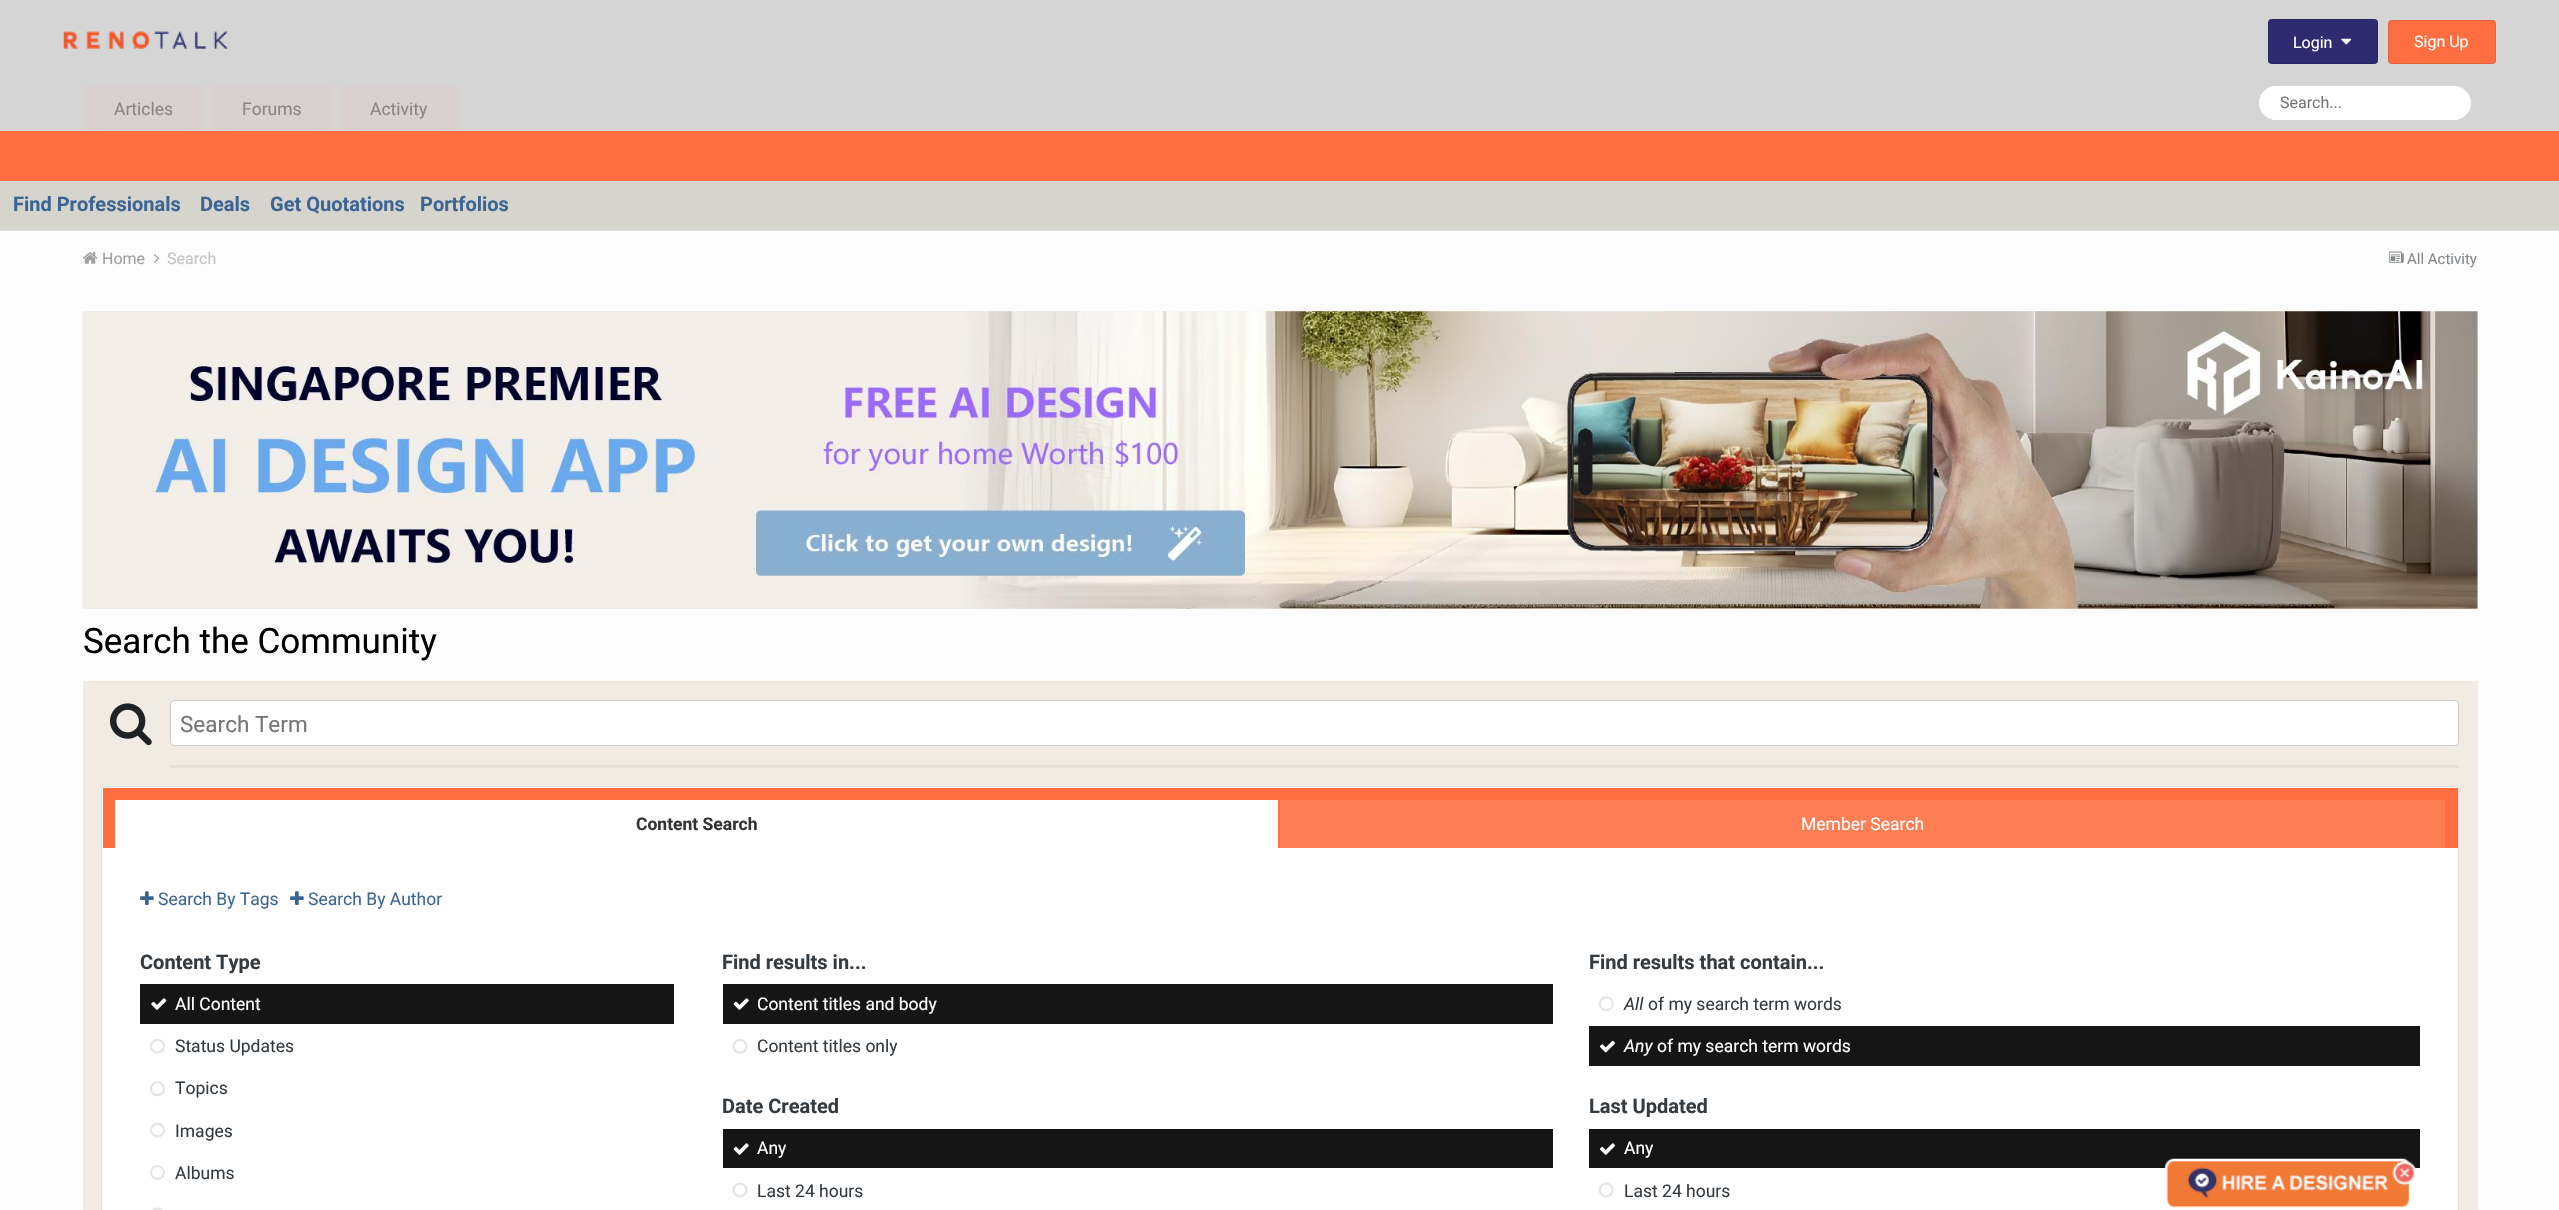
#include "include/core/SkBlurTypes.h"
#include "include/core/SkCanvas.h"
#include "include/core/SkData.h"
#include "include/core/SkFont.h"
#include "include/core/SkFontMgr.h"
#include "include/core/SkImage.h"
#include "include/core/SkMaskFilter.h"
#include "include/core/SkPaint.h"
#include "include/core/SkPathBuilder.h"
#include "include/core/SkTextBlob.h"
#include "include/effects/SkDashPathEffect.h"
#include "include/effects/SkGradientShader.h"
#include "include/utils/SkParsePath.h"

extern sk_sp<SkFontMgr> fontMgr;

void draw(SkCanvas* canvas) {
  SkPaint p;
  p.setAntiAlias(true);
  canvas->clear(SkColorSetRGB(252, 252, 252));
  p.setColor(SkColorSetRGB(227, 227, 227));
  canvas->drawRect(SkRect::MakeLTRB(0, 230, 2559, 231), p);
  p.setColor(SkColorSetRGB(214, 213, 213));
  canvas->drawRect(SkRect::MakeLTRB(0, 0, 2559, 131), p);
  canvas->drawImageRect(SkImages::DeferredFromEncodedData(SkData::MakeFromFileName("images/1.png")), SkRect::MakeLTRB(63, 31, 228, 49), SkSamplingOptions());
  p.setColor(SkColorSetRGB(46, 43, 112));
  canvas->drawRoundRect(SkRect::MakeLTRB(2268, 19, 2378, 64), 4, 4, p);
  p.setStyle(SkPaint::kStroke_Style);
  p.setStrokeWidth(1);
  p.setColor(SkColorSetARGB(26, 0, 0, 0));
  canvas->drawRoundRect(SkRect::MakeLTRB(2268.5f, 19.5f, 2377.5f, 63.5f), 3.5f, 3.5f, p);
  canvas->drawImageRect(SkImages::DeferredFromEncodedData(SkData::MakeFromFileName("images/2.png")), SkRect::MakeLTRB(2341, 38, 2352, 45), SkSamplingOptions());
  p.setStyle(SkPaint::kFill_Style);
  p.setColor(SkColorSetRGB(255, 110, 64));
  canvas->drawRoundRect(SkRect::MakeLTRB(2388, 20, 2496, 64), 4, 4, p);
  p.setStyle(SkPaint::kStroke_Style);
  p.setColor(SkColorSetARGB(26, 0, 0, 0));
  canvas->drawRoundRect(SkRect::MakeLTRB(2388.5f, 20.5f, 2495.5f, 63.5f), 3.5f, 3.5f, p);
  p.setStyle(SkPaint::kFill_Style);
  p.setColor(SkColorSetRGB(255, 110, 64));
  canvas->drawRect(SkRect::MakeLTRB(0, 131, 2559, 181), p);
  p.setColor(SkColorSetRGB(216, 209, 207));
  canvas->drawPath(SkPathBuilder().moveTo(85.5f, 86).lineTo(201.5f, 86).cubicTo(203, 86, 204, 87, 204, 88.5f).lineTo(204, 131).lineTo(83, 131).lineTo(83, 88.5f).cubicTo(83, 87, 84, 86, 85.5f, 86).close().detach(), p);
  canvas->drawPath(SkPathBuilder().moveTo(212.5f, 86).lineTo(330.5f, 86).cubicTo(332, 86, 333, 87, 333, 88.5f).lineTo(333, 131).lineTo(210, 131).lineTo(210, 88.5f).cubicTo(210, 87, 211, 86, 212.5f, 86).close().detach(), p);
  canvas->drawPath(SkPathBuilder().moveTo(341.5f, 86).lineTo(456.5f, 86).cubicTo(458, 86, 459, 87, 459, 88.5f).lineTo(459, 131).lineTo(339, 131).lineTo(339, 88.5f).cubicTo(339, 87, 340, 86, 341.5f, 86).close().detach(), p);
  p.setColor(SK_ColorWHITE);
  canvas->drawRoundRect(SkRect::MakeLTRB(2259, 86, 2471, 120), 17, 17, p);
  p.setStyle(SkPaint::kStroke_Style);
  p.setColor(SkColorSetRGB(118, 118, 118));
  canvas->drawRoundRect(SkRect::MakeLTRB(2271.5f, 91.5f, 2307.5f, 118.5f), 2, 2, p);
  p.setStyle(SkPaint::kFill_Style);
  p.setColor(SK_ColorWHITE);
  canvas->drawRoundRect(SkRect::MakeLTRB(2271, 86, 2434, 120), 4, 4, p);
  p.setColor(SkColorSetRGB(213, 212, 205));
  canvas->drawRect(SkRect::MakeLTRB(0, 181, 2559, 230), p);
  canvas->drawImageRect(SkImages::DeferredFromEncodedData(SkData::MakeFromFileName("images/3.png")), SkRect::MakeLTRB(83, 252, 98, 264), SkSamplingOptions());
  canvas->drawImageRect(SkImages::DeferredFromEncodedData(SkData::MakeFromFileName("images/4.png")), SkRect::MakeLTRB(154, 254, 160, 263), SkSamplingOptions());
  canvas->drawImageRect(SkImages::DeferredFromEncodedData(SkData::MakeFromFileName("images/5.png")), SkRect::MakeLTRB(2389, 251, 2404, 263), SkSamplingOptions());
  p.setColor(SkColorSetRGB(240, 232, 230));
  canvas->drawRect(SkRect::MakeLTRB(83, 311, 2478, 609), p);
  canvas->drawImageRect(SkImages::DeferredFromEncodedData(SkData::MakeFromFileName("images/6.png")), SkRect::MakeLTRB(82, 311, 2478, 609), SkSamplingOptions());
  p.setColor(SkColorSetRGB(242, 235, 228));
  canvas->drawRect(SkRect::MakeLTRB(83, 681, 2478, 1210), p);
  canvas->drawImageRect(SkImages::DeferredFromEncodedData(SkData::MakeFromFileName("images/7.png")), SkRect::MakeLTRB(110, 703, 152, 746), SkSamplingOptions());
  p.setColor(SK_ColorWHITE);
  canvas->drawRoundRect(SkRect::MakeLTRB(170, 700, 2459, 746), 4, 4, p);
  p.setStyle(SkPaint::kStroke_Style);
  p.setColor(SkColorSetARGB(51, 0, 0, 0));
  canvas->drawRoundRect(SkRect::MakeLTRB(170.5f, 700.5f, 2458.5f, 745.5f), 3.5f, 3.5f, p);
  p.setStyle(SkPaint::kFill_Style);
  p.setColor(SkColorSetRGB(230, 223, 217));
  canvas->drawRect(SkRect::MakeLTRB(170, 765, 2459, 768), p);
  p.setColor(SK_ColorWHITE);
  canvas->drawRoundRect(SkRect::MakeLTRB(101.5f, 786.5f, 2458.5f, 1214.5f), 3.5f, 3.5f, p);
  p.setStyle(SkPaint::kStroke_Style);
  p.setColor(SkColorSetRGB(224, 224, 224));
  canvas->drawRoundRect(SkRect::MakeLTRB(101.5f, 786.5f, 2458.5f, 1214.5f), 3.5f, 3.5f, p);
  p.setStyle(SkPaint::kFill_Style);
  p.setColor(SkColorSetRGB(255, 110, 64));
  canvas->drawRect(SkRect::MakeLTRB(103, 788, 2458, 848), p);
  p.setColor(SK_ColorWHITE);
  canvas->drawRect(SkRect::MakeLTRB(115, 800, 1278, 848), p);
  p.setColor(SkColorSetRGB(255, 125, 83));
  canvas->drawRect(SkRect::MakeLTRB(1280, 800, 2445, 848), p);
  canvas->drawImageRect(SkImages::DeferredFromEncodedData(SkData::MakeFromFileName("images/8.png")), SkRect::MakeLTRB(140, 891, 154, 905), SkSamplingOptions());
  canvas->drawImageRect(SkImages::DeferredFromEncodedData(SkData::MakeFromFileName("images/8.png")), SkRect::MakeLTRB(290, 891, 304, 905), SkSamplingOptions());
  p.setColor(SkColorSetRGB(21, 21, 21));
  canvas->drawRect(SkRect::MakeLTRB(140, 984, 674, 1024), p);
  canvas->drawImageRect(SkImages::DeferredFromEncodedData(SkData::MakeFromFileName("images/9.png")), SkRect::MakeLTRB(151, 998, 167, 1010), SkSamplingOptions());
  canvas->drawImageRect(SkImages::DeferredFromEncodedData(SkData::MakeFromFileName("images/10.png")), SkRect::MakeLTRB(150, 1038, 165, 1054), SkSamplingOptions());
  canvas->drawImageRect(SkImages::DeferredFromEncodedData(SkData::MakeFromFileName("images/11.png")), SkRect::MakeLTRB(150, 1081, 165, 1097), SkSamplingOptions());
  canvas->drawImageRect(SkImages::DeferredFromEncodedData(SkData::MakeFromFileName("images/12.png")), SkRect::MakeLTRB(150, 1122, 165, 1138), SkSamplingOptions());
  canvas->drawImageRect(SkImages::DeferredFromEncodedData(SkData::MakeFromFileName("images/13.png")), SkRect::MakeLTRB(150, 1165, 165, 1180), SkSamplingOptions());
  canvas->drawImageRect(SkImages::DeferredFromEncodedData(SkData::MakeFromFileName("images/14.png")), SkRect::MakeLTRB(152, 1207, 163, 1210), SkSamplingOptions());
  canvas->drawRect(SkRect::MakeLTRB(723, 984, 1553, 1024), p);
  canvas->drawImageRect(SkImages::DeferredFromEncodedData(SkData::MakeFromFileName("images/15.png")), SkRect::MakeLTRB(733, 998, 749, 1010), SkSamplingOptions());
  canvas->drawImageRect(SkImages::DeferredFromEncodedData(SkData::MakeFromFileName("images/16.png")), SkRect::MakeLTRB(732, 1038, 748, 1054), SkSamplingOptions());
  canvas->drawImageRect(SkImages::DeferredFromEncodedData(SkData::MakeFromFileName("images/17.png")), SkRect::MakeLTRB(1598, 996, 1614, 1012), SkSamplingOptions());
  canvas->drawRect(SkRect::MakeLTRB(1589, 1026, 2420, 1066), p);
  canvas->drawImageRect(SkImages::DeferredFromEncodedData(SkData::MakeFromFileName("images/18.png")), SkRect::MakeLTRB(1600, 1040, 1615, 1053), SkSamplingOptions());
  canvas->drawRect(SkRect::MakeLTRB(723, 1129, 1553, 1168), p);
  canvas->drawImageRect(SkImages::DeferredFromEncodedData(SkData::MakeFromFileName("images/15.png")), SkRect::MakeLTRB(733, 1143, 749, 1155), SkSamplingOptions());
  canvas->drawImageRect(SkImages::DeferredFromEncodedData(SkData::MakeFromFileName("images/19.png")), SkRect::MakeLTRB(732, 1182, 748, 1198), SkSamplingOptions());
  canvas->drawRect(SkRect::MakeLTRB(1589, 1129, 2420, 1168), p);
  canvas->drawImageRect(SkImages::DeferredFromEncodedData(SkData::MakeFromFileName("images/20.png")), SkRect::MakeLTRB(1600, 1143, 1615, 1155), SkSamplingOptions());
  canvas->drawImageRect(SkImages::DeferredFromEncodedData(SkData::MakeFromFileName("images/21.png")), SkRect::MakeLTRB(1598, 1182, 1614, 1198), SkSamplingOptions());
  canvas->drawImageRect(SkImages::DeferredFromEncodedData(SkData::MakeFromFileName("images/22.png")), SkRect::MakeLTRB(2164, 1158, 2417, 1208), SkSamplingOptions());
  SkFont font1(fontMgr->matchFamilyStyle("Roboto", SkFontStyle::Normal()), 16);
  font1.setSubpixel(true);
  p.setColor(SK_ColorWHITE);
  canvas->drawString("Login", 2293, 48, font1, p);
  canvas->drawString("Sign Up", 2414, 47, font1, p);
  SkFont font2(fontMgr->matchFamilyStyle("Roboto", SkFontStyle::Normal()), 17.5f);
  font2.setSubpixel(true);
  p.setColor(SkColorSetRGB(136, 134, 134));
  canvas->drawString("Articles", 114, 115, font2, p);
  canvas->drawString("Forums", 242, 115, font2, p);
  canvas->drawString("Activity", 370, 115, font2, p);
  p.setColor(SkColorSetRGB(117, 117, 117));
  canvas->drawString("Search...", 2280, 108, font1, p);
  SkFont font3(fontMgr->matchFamilyStyle("Roboto", SkFontStyle::Bold()), 20);
  font3.setSubpixel(true);
  p.setColor(SkColorSetRGB(61, 101, 148));
  canvas->drawString("Find Professionals", 13, 211, font3, p);
  canvas->drawString("Deals", 200, 211, font3, p);
  canvas->drawString("Get Quotations", 270, 211, font3, p);
  canvas->drawString("Portfolios", 420, 211, font3, p);
  p.setColor(SkColorSetRGB(159, 159, 159));
  canvas->drawString("Home", 102, 264, font1, p);
  p.setColor(SkColorSetRGB(196, 196, 196));
  canvas->drawString("Search", 167, 264, font1, p);
  SkFont font4(fontMgr->matchFamilyStyle("Roboto", SkFontStyle::Normal()), 15);
  font4.setSubpixel(true);
  p.setColor(SkColorSetRGB(133, 137, 140));
  canvas->drawString("All Activity", 2407, 264, font4, p);
  SkFont font5(fontMgr->matchFamilyStyle("Roboto", SkFontStyle::Normal()), 35);
  font5.setSubpixel(true);
  p.setColor(SK_ColorBLACK);
  canvas->drawString("Search the Community", 83, 653, font5, p);
  SkFont font6(fontMgr->matchFamilyStyle("Roboto", SkFontStyle::Normal()), 22.5f);
  font6.setSubpixel(true);
  p.setColor(SkColorSetRGB(117, 117, 117));
  canvas->drawString("Search Term", 180, 732, font6, p);
  SkFont font7(fontMgr->matchFamilyStyle("Roboto", SkFontStyle::Bold()), 17.5f);
  font7.setSubpixel(true);
  p.setColor(SkColorSetRGB(51, 51, 51));
  canvas->drawString("Content Search", 636, 830, font7, p);
  p.setColor(SK_ColorWHITE);
  canvas->drawString("Member Search", 1801, 830, font2, p);
  p.setColor(SkColorSetRGB(61, 101, 148));
  canvas->drawString("Search By Tags", 158, 905, font2, p);
  canvas->drawString("Search By Author", 308, 905, font2, p);
  p.setColor(SkColorSetRGB(53, 60, 65));
  canvas->drawString("Content Type", 140, 969, font3, p);
  p.setColor(SK_ColorWHITE);
  canvas->drawString("All Content", 175, 1010, font2, p);
  p.setColor(SkColorSetRGB(53, 60, 65));
  canvas->drawString("Status Updates", 175, 1052, font2, p);
  canvas->drawString("Topics", 175, 1094, font2, p);
  canvas->drawString("Images", 175, 1137, font2, p);
  canvas->drawString("Albums", 175, 1179, font2, p);
  canvas->drawString("Find results in...", 722, 969, font3, p);
  p.setColor(SK_ColorWHITE);
  canvas->drawString("Content titles and body", 757, 1010, font2, p);
  p.setColor(SkColorSetRGB(53, 60, 65));
  canvas->drawString("Content titles only", 757, 1052, font2, p);
  canvas->drawString("Find results that contain...", 1589, 969, font3, p);
  SkFont font8(fontMgr->matchFamilyStyle("Roboto", SkFontStyle::Italic()), 17.5f);
  font8.setSubpixel(true);
  canvas->drawString("All", 1624, 1010, font8, p);
  canvas->drawString("of my search term words", 1648, 1010, font2, p);
  p.setColor(SK_ColorWHITE);
  canvas->drawString("Any", 1624, 1052, font8, p);
  canvas->drawString("of my search term words", 1657, 1052, font2, p);
  p.setColor(SkColorSetRGB(53, 60, 65));
  canvas->drawString("Date Created", 722, 1113, font3, p);
  p.setColor(SK_ColorWHITE);
  canvas->drawString("Any", 757, 1154, font2, p);
  p.setColor(SkColorSetRGB(53, 60, 65));
  canvas->drawString("Last 24 hours", 757, 1197, font2, p);
  canvas->drawString("Last Updated", 1589, 1113, font3, p);
  p.setColor(SK_ColorWHITE);
  canvas->drawString("Any", 1624, 1154, font2, p);
  p.setColor(SkColorSetRGB(53, 60, 65));
  canvas->drawString("Last 24 hours", 1624, 1197, font2, p);
}
